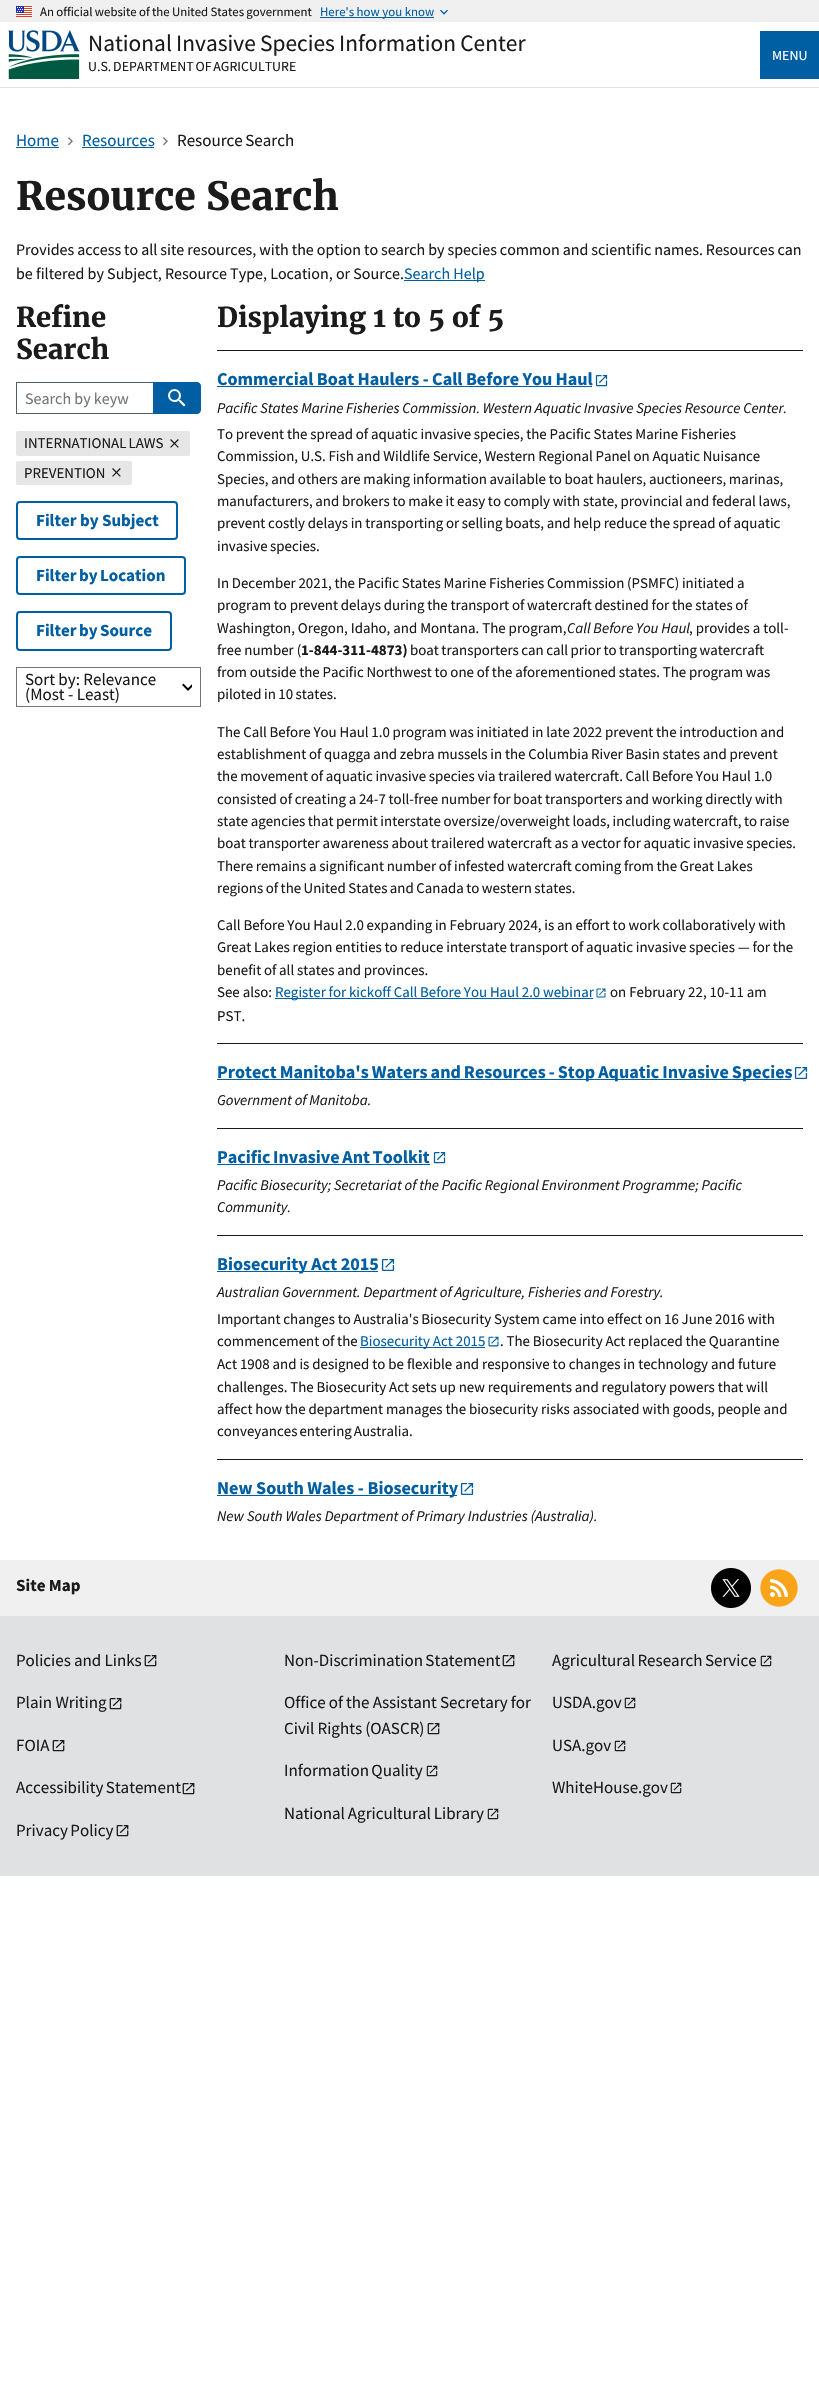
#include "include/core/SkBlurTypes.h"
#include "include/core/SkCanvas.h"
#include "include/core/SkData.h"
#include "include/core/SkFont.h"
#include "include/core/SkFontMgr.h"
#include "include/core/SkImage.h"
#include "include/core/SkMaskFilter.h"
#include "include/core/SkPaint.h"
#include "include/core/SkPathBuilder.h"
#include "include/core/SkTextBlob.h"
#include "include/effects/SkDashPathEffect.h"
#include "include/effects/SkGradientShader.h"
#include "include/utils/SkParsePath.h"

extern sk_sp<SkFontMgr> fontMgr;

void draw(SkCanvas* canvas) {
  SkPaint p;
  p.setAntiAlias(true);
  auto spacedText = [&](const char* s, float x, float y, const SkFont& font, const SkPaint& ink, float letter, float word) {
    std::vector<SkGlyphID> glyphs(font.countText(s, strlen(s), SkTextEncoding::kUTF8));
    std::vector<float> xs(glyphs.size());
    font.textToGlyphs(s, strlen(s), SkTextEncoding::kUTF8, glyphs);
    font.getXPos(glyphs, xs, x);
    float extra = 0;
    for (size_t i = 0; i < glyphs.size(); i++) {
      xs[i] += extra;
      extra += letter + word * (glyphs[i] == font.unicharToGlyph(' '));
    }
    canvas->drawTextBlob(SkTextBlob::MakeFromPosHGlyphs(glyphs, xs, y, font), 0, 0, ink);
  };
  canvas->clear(SK_ColorWHITE);
  p.setColor(SkColorSetRGB(240, 240, 240));
  canvas->drawRect(SkRect::MakeLTRB(0, 0, 819, 22), p);
  canvas->drawImageRect(SkImages::DeferredFromEncodedData(SkData::MakeFromFileName("images/1.png")), SkRect::MakeLTRB(16, 6, 32, 17), SkSamplingOptions());
  p.setColor(SkColorSetRGB(0, 94, 162));
  canvas->drawRect(SkRect::MakeLTRB(320, 17, 434, 18), p);
  canvas->drawImageRect(SkImages::DeferredFromEncodedData(SkData::MakeFromFileName("images/2.png")), SkRect::MakeLTRB(440, 9, 448, 15), SkSamplingOptions());
  p.setColor(SkColorSetRGB(223, 225, 226));
  canvas->drawRect(SkRect::MakeLTRB(0, 87, 819, 88), p);
  canvas->drawImageRect(SkImages::DeferredFromEncodedData(SkData::MakeFromFileName("images/3.png")), SkRect::MakeLTRB(8, 30, 80, 79), SkSamplingOptions());
  p.setColor(SkColorSetRGB(0, 94, 162));
  canvas->drawRect(SkRect::MakeLTRB(760, 31, 819, 79), p);
  canvas->drawRect(SkRect::MakeLTRB(16, 147, 59, 148), p);
  canvas->drawImageRect(SkImages::DeferredFromEncodedData(SkData::MakeFromFileName("images/4.png")), SkRect::MakeLTRB(68, 137, 73, 146), SkSamplingOptions());
  canvas->drawRect(SkRect::MakeLTRB(82, 147, 154, 148), p);
  canvas->drawImageRect(SkImages::DeferredFromEncodedData(SkData::MakeFromFileName("images/4.png")), SkRect::MakeLTRB(163, 137, 168, 146), SkSamplingOptions());
  canvas->drawRect(SkRect::MakeLTRB(404, 280, 485, 281), p);
  p.setColor(SkColorSetRGB(86, 92, 101));
  canvas->drawRect(SkRect::MakeLTRB(16, 382, 153, 383), p);
  canvas->drawRect(SkRect::MakeLTRB(16, 413, 153, 414), p);
  canvas->drawRect(SkRect::MakeLTRB(16, 382, 17, 414), p);
  p.setColor(SkColorSetRGB(0, 94, 162));
  canvas->drawPath(SkPathBuilder().moveTo(153, 382).lineTo(197, 382).cubicTo(199, 382, 201, 384, 201, 386).lineTo(201, 410).cubicTo(201, 412, 199, 414, 197, 414).lineTo(153, 414).close().detach(), p);
  canvas->drawImageRect(SkImages::DeferredFromEncodedData(SkData::MakeFromFileName("images/5.png")), SkRect::MakeLTRB(168, 389, 186, 407), SkSamplingOptions());
  p.setColor(SkColorSetRGB(230, 230, 230));
  canvas->drawRoundRect(SkRect::MakeLTRB(16, 431, 190, 456), 2, 2, p);
  canvas->drawImageRect(SkImages::DeferredFromEncodedData(SkData::MakeFromFileName("images/6.png")), SkRect::MakeLTRB(170, 439, 179, 448), SkSamplingOptions());
  canvas->drawRoundRect(SkRect::MakeLTRB(16, 461, 132, 485), 2, 2, p);
  canvas->drawImageRect(SkImages::DeferredFromEncodedData(SkData::MakeFromFileName("images/6.png")), SkRect::MakeLTRB(112, 468, 121, 477), SkSamplingOptions());
  p.setStyle(SkPaint::kStroke_Style);
  p.setStrokeWidth(2);
  p.setColor(SkColorSetRGB(0, 94, 162));
  canvas->drawRoundRect(SkRect::MakeLTRB(17, 502, 177, 539), 3, 3, p);
  canvas->drawRoundRect(SkRect::MakeLTRB(17, 557, 185, 594), 3, 3, p);
  canvas->drawRoundRect(SkRect::MakeLTRB(17, 612, 171, 650), 3, 3, p);
  p.setStrokeWidth(1);
  p.setColor(SkColorSetRGB(113, 118, 122));
  canvas->drawRect(SkRect::MakeLTRB(16.5f, 667.5f, 200.5f, 706.5f), p);
  canvas->drawImageRect(SkImages::DeferredFromEncodedData(SkData::MakeFromFileName("images/7.png")), SkRect::MakeLTRB(182, 683, 192, 691), SkSamplingOptions());
  p.setStyle(SkPaint::kFill_Style);
  p.setColor(SkColorSetRGB(27, 27, 27));
  canvas->drawRect(SkRect::MakeLTRB(217, 350, 803, 351), p);
  p.setColor(SkColorSetRGB(0, 94, 162));
  canvas->drawRect(SkRect::MakeLTRB(217, 386, 592, 387), p);
  canvas->drawImageRect(SkImages::DeferredFromEncodedData(SkData::MakeFromFileName("images/8.png")), SkRect::MakeLTRB(595, 375, 608, 387), SkSamplingOptions());
  canvas->drawRect(SkRect::MakeLTRB(275, 998, 593, 999), p);
  canvas->drawImageRect(SkImages::DeferredFromEncodedData(SkData::MakeFromFileName("images/9.png")), SkRect::MakeLTRB(596, 988, 606, 998), SkSamplingOptions());
  p.setColor(SkColorSetRGB(27, 27, 27));
  canvas->drawRect(SkRect::MakeLTRB(217, 1043, 803, 1044), p);
  p.setColor(SkColorSetRGB(0, 94, 162));
  canvas->drawRect(SkRect::MakeLTRB(217, 1079, 791, 1080), p);
  canvas->drawImageRect(SkImages::DeferredFromEncodedData(SkData::MakeFromFileName("images/10.png")), SkRect::MakeLTRB(794, 1067, 808, 1079), SkSamplingOptions());
  p.setColor(SkColorSetRGB(27, 27, 27));
  canvas->drawRect(SkRect::MakeLTRB(217, 1128, 803, 1129), p);
  p.setColor(SkColorSetRGB(0, 94, 162));
  canvas->drawRect(SkRect::MakeLTRB(217, 1164, 430, 1165), p);
  canvas->drawImageRect(SkImages::DeferredFromEncodedData(SkData::MakeFromFileName("images/8.png")), SkRect::MakeLTRB(433, 1152, 446, 1164), SkSamplingOptions());
  p.setColor(SkColorSetRGB(27, 27, 27));
  canvas->drawRect(SkRect::MakeLTRB(217, 1235, 803, 1236), p);
  p.setColor(SkColorSetRGB(0, 94, 162));
  canvas->drawRect(SkRect::MakeLTRB(217, 1271, 378, 1272), p);
  canvas->drawImageRect(SkImages::DeferredFromEncodedData(SkData::MakeFromFileName("images/10.png")), SkRect::MakeLTRB(381, 1259, 395, 1271), SkSamplingOptions());
  canvas->drawRect(SkRect::MakeLTRB(360, 1347, 485, 1348), p);
  canvas->drawImageRect(SkImages::DeferredFromEncodedData(SkData::MakeFromFileName("images/11.png")), SkRect::MakeLTRB(488, 1336, 499, 1347), SkSamplingOptions());
  p.setColor(SkColorSetRGB(27, 27, 27));
  canvas->drawRect(SkRect::MakeLTRB(217, 1459, 803, 1460), p);
  p.setColor(SkColorSetRGB(0, 94, 162));
  canvas->drawRect(SkRect::MakeLTRB(217, 1495, 457, 1496), p);
  canvas->drawImageRect(SkImages::DeferredFromEncodedData(SkData::MakeFromFileName("images/10.png")), SkRect::MakeLTRB(460, 1483, 474, 1495), SkSamplingOptions());
  p.setColor(SkColorSetRGB(240, 240, 240));
  canvas->drawRect(SkRect::MakeLTRB(0, 1560, 819, 1616), p);
  canvas->drawImageRect(SkImages::DeferredFromEncodedData(SkData::MakeFromFileName("images/12.png")), SkRect::MakeLTRB(711, 1568, 751, 1608), SkSamplingOptions());
  canvas->drawImageRect(SkImages::DeferredFromEncodedData(SkData::MakeFromFileName("images/13.png")), SkRect::MakeLTRB(760, 1569, 798, 1607), SkSamplingOptions());
  p.setColor(SkColorSetRGB(223, 225, 226));
  canvas->drawRect(SkRect::MakeLTRB(0, 1616, 819, 1876), p);
  canvas->drawImageRect(SkImages::DeferredFromEncodedData(SkData::MakeFromFileName("images/14.png")), SkRect::MakeLTRB(144, 1655, 157, 1667), SkSamplingOptions());
  canvas->drawImageRect(SkImages::DeferredFromEncodedData(SkData::MakeFromFileName("images/15.png")), SkRect::MakeLTRB(502, 1655, 515, 1667), SkSamplingOptions());
  canvas->drawImageRect(SkImages::DeferredFromEncodedData(SkData::MakeFromFileName("images/16.png")), SkRect::MakeLTRB(760, 1655, 772, 1667), SkSamplingOptions());
  canvas->drawImageRect(SkImages::DeferredFromEncodedData(SkData::MakeFromFileName("images/14.png")), SkRect::MakeLTRB(109, 1698, 122, 1710), SkSamplingOptions());
  canvas->drawImageRect(SkImages::DeferredFromEncodedData(SkData::MakeFromFileName("images/14.png")), SkRect::MakeLTRB(427, 1723, 440, 1735), SkSamplingOptions());
  canvas->drawImageRect(SkImages::DeferredFromEncodedData(SkData::MakeFromFileName("images/17.png")), SkRect::MakeLTRB(624, 1697, 636, 1709), SkSamplingOptions());
  canvas->drawImageRect(SkImages::DeferredFromEncodedData(SkData::MakeFromFileName("images/18.png")), SkRect::MakeLTRB(52, 1740, 65, 1752), SkSamplingOptions());
  canvas->drawImageRect(SkImages::DeferredFromEncodedData(SkData::MakeFromFileName("images/17.png")), SkRect::MakeLTRB(614, 1740, 626, 1752), SkSamplingOptions());
  canvas->drawImageRect(SkImages::DeferredFromEncodedData(SkData::MakeFromFileName("images/17.png")), SkRect::MakeLTRB(426, 1765, 438, 1777), SkSamplingOptions());
  canvas->drawImageRect(SkImages::DeferredFromEncodedData(SkData::MakeFromFileName("images/14.png")), SkRect::MakeLTRB(182, 1783, 195, 1795), SkSamplingOptions());
  canvas->drawImageRect(SkImages::DeferredFromEncodedData(SkData::MakeFromFileName("images/17.png")), SkRect::MakeLTRB(670, 1782, 682, 1794), SkSamplingOptions());
  canvas->drawImageRect(SkImages::DeferredFromEncodedData(SkData::MakeFromFileName("images/17.png")), SkRect::MakeLTRB(487, 1808, 499, 1820), SkSamplingOptions());
  canvas->drawImageRect(SkImages::DeferredFromEncodedData(SkData::MakeFromFileName("images/14.png")), SkRect::MakeLTRB(116, 1825, 129, 1837), SkSamplingOptions());
  SkFont font1(fontMgr->matchFamilyStyle("Source Sans Pro", SkFontStyle::Normal()), 12.8f);
  font1.setSubpixel(true);
  p.setColor(SkColorSetRGB(27, 27, 27));
  spacedText("An official website of the United States government", 40, 16, font1, p, 0, -0.25f);
  p.setColor(SkColorSetRGB(0, 94, 162));
  canvas->drawString("Here's how you know", 320, 16, font1, p);
  SkFont font2(fontMgr->matchFamilyStyle("Source Sans Pro", SkFontStyle::Normal()), 23.4f);
  font2.setSubpixel(true);
  p.setColor(SkColorSetRGB(27, 27, 27));
  spacedText("National Invasive Species Information Center", 88, 51, font2, p, 0, -0.5f);
  SkFont font3(fontMgr->matchFamilyStyle("Source Sans Pro", SkFontStyle::Normal()), 13.9f);
  font3.setSubpixel(true);
  spacedText("U.S. DEPARTMENT OF AGRICULTURE", 88, 71, font3, p, 0, -1);
  p.setColor(SK_ColorWHITE);
  canvas->drawString("MENU", 772, 60, font3, p);
  SkFont font4(fontMgr->matchFamilyStyle("Source Sans Pro", SkFontStyle::Normal()), 17);
  font4.setSubpixel(true);
  p.setColor(SkColorSetRGB(0, 94, 162));
  canvas->drawString("Home", 16, 146, font4, p);
  canvas->drawString("Resources", 82, 146, font4, p);
  p.setColor(SkColorSetRGB(27, 27, 27));
  spacedText("Resource Search", 177, 146, font4, p, 0, -1);
  SkFont font5(fontMgr->matchFamilyStyle("Merriweather", SkFontStyle::Bold()), 39);
  font5.setSubpixel(true);
  canvas->drawString("Resource Search", 16, 210, font5, p);
  SkFont font6(fontMgr->matchFamilyStyle("Source Sans Pro", SkFontStyle::Normal()), 16);
  font6.setSubpixel(true);
  spacedText("Provides access to all site resources, with the option to search by species common and scientific names. Resources can", 16, 255, font6, p, 0, -0.25f);
  canvas->drawString("be filtered by Subject, Resource Type, Location, or Source.", 16, 279, font6, p);
  p.setColor(SkColorSetRGB(0, 94, 162));
  canvas->drawString("Search Help", 404, 279, font6, p);
  SkFont font7(fontMgr->matchFamilyStyle("Merriweather", SkFontStyle::Bold()), 27.4f);
  font7.setSubpixel(true);
  p.setColor(SkColorSetRGB(27, 27, 27));
  canvas->drawString("Refine", 16, 327, font7, p);
  canvas->drawString("Search", 16, 359, font7, p);
  p.setColor(SkColorSetRGB(117, 117, 117));
  canvas->drawString("Search by keyw", 25, 404, font6, p);
  SkFont font8(fontMgr->matchFamilyStyle("Source Sans Pro", SkFontStyle::Normal()), 14.9f);
  font8.setSubpixel(true);
  p.setColor(SkColorSetRGB(27, 27, 27));
  spacedText("INTERNATIONAL LAWS", 24, 448, font8, p, 0, -1);
  canvas->drawString("PREVENTION", 24, 478, font8, p);
  SkFont font9(fontMgr->matchFamilyStyle("Source Sans Pro", SkFontStyle::Bold()), 17);
  font9.setSubpixel(true);
  p.setColor(SkColorSetRGB(0, 94, 162));
  canvas->drawString("Filter by Subject", 36, 526, font9, p);
  spacedText("Filter by Location", 36, 581, font9, p, 0, -1);
  spacedText("Filter by Source", 36, 636, font9, p, 0, -1);
  p.setColor(SkColorSetRGB(27, 27, 27));
  canvas->drawString("Sort by: Relevance", 25, 685, font4, p);
  canvas->drawString("(Most - Least)", 25, 700, font4, p);
  canvas->drawString("Displaying 1 to 5 of 5", 217, 327, font7, p);
  SkFont font10(fontMgr->matchFamilyStyle("Source Sans Pro", SkFontStyle::Bold()), 18.1f);
  font10.setSubpixel(true);
  p.setColor(SkColorSetRGB(0, 94, 162));
  spacedText("Commercial Boat Haulers - Call Before You Haul", 217, 385, font10, p, 0, -0.25f);
  SkFont font11(fontMgr->matchFamilyStyle("Source Sans Pro", SkFontStyle::Italic()), 14.9f);
  font11.setSubpixel(true);
  p.setColor(SkColorSetRGB(27, 27, 27));
  spacedText("Pacific States Marine Fisheries Commission. Western Aquatic Invasive Species Resource Center.", 217, 413, font11, p, 0, -0.25f);
  spacedText("To prevent the spread of aquatic invasive species, the Pacific States Marine Fisheries", 217, 439, font8, p, 0, -0.25f);
  spacedText("Commission, U.S. Fish and Wildlife Service, Western Regional Panel on Aquatic Nuisance", 217, 461, font8, p, 0, -0.25f);
  spacedText("Species, and others are making information available to boat haulers, auctioneers, marinas,", 217, 484, font8, p, 0, -0.25f);
  spacedText("manufacturers, and brokers to make it easy to comply with state, provincial and federal laws,", 217, 506, font8, p, 0, -0.25f);
  spacedText("prevent costly delays in transporting or selling boats, and help reduce the spread of aquatic", 217, 528, font8, p, 0, -0.25f);
  spacedText("invasive species.", 217, 551, font8, p, 0, -0.5f);
  spacedText("In December 2021, the Pacific States Marine Fisheries Commission (PSMFC) initiated a", 217, 588, font8, p, 0, -0.25f);
  spacedText("program to prevent delays during the transport of watercraft destined for the states of", 217, 610, font8, p, 0, -0.25f);
  canvas->drawString("Washington, Oregon, Idaho, and Montana. The program,", 217, 633, font8, p);
  spacedText("Call Before You Haul", 567, 633, font11, p, 0, -0.25f);
  canvas->drawString(", provides a toll-", 689, 633, font8, p);
  canvas->drawString("free number (", 217, 655, font8, p);
  SkFont font12(fontMgr->matchFamilyStyle("Source Sans Pro", SkFontStyle::Bold()), 14.9f);
  font12.setSubpixel(true);
  canvas->drawString("1-844-311-4873)", 301, 655, font12, p);
  spacedText("boat transporters can call prior to transporting watercraft", 410, 655, font8, p, 0, -0.5f);
  spacedText("from outside the Pacific Northwest to one of the aforementioned states. The program was", 217, 677, font8, p, 0, -0.25f);
  spacedText("piloted in 10 states.", 217, 699, font8, p, 0, -0.5f);
  spacedText("The Call Before You Haul 1.0 program was initiated in late 2022 prevent the introduction and", 217, 737, font8, p, 0, -0.25f);
  spacedText("establishment of quagga and zebra mussels in the Columbia River Basin states and prevent", 217, 759, font8, p, 0, -0.25f);
  spacedText("the movement of aquatic invasive species via trailered watercraft. Call Before You Haul 1.0", 217, 781, font8, p, 0, -0.25f);
  spacedText("consisted of creating a 24-7 toll-free number for boat transporters and working directly with", 217, 804, font8, p, 0, -0.25f);
  spacedText("state agencies that permit interstate oversize/overweight loads, including watercraft, to raise", 217, 826, font8, p, 0, -0.5f);
  spacedText("boat transporter awareness about trailered watercraft as a vector for aquatic invasive species.", 217, 848, font8, p, 0, -0.3f);
  spacedText("There remains a significant number of infested watercraft coming from the Great Lakes", 217, 871, font8, p, 0, -0.25f);
  spacedText("regions of the United States and Canada to western states.", 217, 893, font8, p, 0, -0.5f);
  spacedText("Call Before You Haul 2.0 expanding in February 2024, is an effort to work collaboratively with", 217, 930, font8, p, 0, -0.2f);
  spacedText("Great Lakes region entities to reduce interstate transport of aquatic invasive species — for the", 217, 952, font8, p, 0, -0.25f);
  spacedText("benefit of all states and provinces.", 217, 975, font8, p, 0, -0.25f);
  canvas->drawString("See also:", 217, 997, font8, p);
  p.setColor(SkColorSetRGB(0, 94, 162));
  spacedText("Register for kickoff Call Before You Haul 2.0 webinar", 275, 997, font8, p, 0, -0.25f);
  p.setColor(SkColorSetRGB(27, 27, 27));
  canvas->drawString("on February 22, 10-11 am", 610, 997, font8, p);
  canvas->drawString("PST.", 217, 1021, font8, p);
  p.setColor(SkColorSetRGB(0, 94, 162));
  spacedText("Protect Manitoba's Waters and Resources - Stop Aquatic Invasive Species", 217, 1078, font10, p, 0, -0.6f);
  p.setColor(SkColorSetRGB(27, 27, 27));
  spacedText("Government of Manitoba.", 217, 1105, font11, p, 0, -0.25f);
  p.setColor(SkColorSetRGB(0, 94, 162));
  spacedText("Pacific Invasive Ant Toolkit", 217, 1163, font10, p, 0, -1);
  p.setColor(SkColorSetRGB(27, 27, 27));
  spacedText("Pacific Biosecurity; Secretariat of the Pacific Regional Environment Programme; Pacific", 217, 1190, font11, p, 0, -0.25f);
  canvas->drawString("Community.", 217, 1212, font11, p);
  p.setColor(SkColorSetRGB(0, 94, 162));
  canvas->drawString("Biosecurity Act 2015", 217, 1270, font10, p);
  p.setColor(SkColorSetRGB(27, 27, 27));
  spacedText("Australian Government. Department of Agriculture, Fisheries and Forestry.", 217, 1297, font11, p, 0, -0.25f);
  spacedText("Important changes to Australia's Biosecurity System came into effect on 16 June 2016 with", 217, 1324, font8, p, 0, -0.25f);
  spacedText("commencement of the", 217, 1346, font8, p, 0, -0.25f);
  p.setColor(SkColorSetRGB(0, 94, 162));
  canvas->drawString("Biosecurity Act 2015", 360, 1346, font8, p);
  p.setColor(SkColorSetRGB(27, 27, 27));
  spacedText(". The Biosecurity Act replaced the Quarantine", 500, 1346, font8, p, 0, -0.2f);
  canvas->drawString("Act 1908 and is designed to be flexible and responsive to changes in technology and future", 217, 1369, font8, p);
  spacedText("challenges. The Biosecurity Act sets up new requirements and regulatory powers that will", 217, 1392, font8, p, 0, -0.2f);
  spacedText("affect how the department manages the biosecurity risks associated with goods, people and", 217, 1414, font8, p, 0, -0.1f);
  spacedText("conveyances entering Australia.", 217, 1436, font8, p, 0, -1);
  p.setColor(SkColorSetRGB(0, 94, 162));
  canvas->drawString("New South Wales - Biosecurity", 217, 1494, font10, p);
  p.setColor(SkColorSetRGB(27, 27, 27));
  canvas->drawString("New South Wales Department of Primary Industries (Australia).", 217, 1521, font11, p);
  canvas->drawString("Site Map", 16, 1591, font9, p);
  spacedText("Policies and Links", 16, 1666, font4, p, 0, -0.25f);
  spacedText("Non-Discrimination Statement", 284, 1666, font4, p, 0, -1);
  spacedText("Agricultural Research Service", 552, 1666, font4, p, 0, -1);
  canvas->drawString("Plain Writing", 16, 1708, font4, p);
  spacedText("Office of the Assistant Secretary for", 284, 1708, font4, p, 0, -0.25f);
  spacedText("Civil Rights (OASCR)", 284, 1734, font4, p, 0, -0.25f);
  canvas->drawString("USDA.gov", 552, 1708, font4, p);
  canvas->drawString("FOIA", 16, 1751, font4, p);
  canvas->drawString("USA.gov", 552, 1751, font4, p);
  spacedText("Information Quality", 284, 1776, font4, p, 0, -1);
  spacedText("Accessibility Statement", 16, 1793, font4, p, 0, -1);
  canvas->drawString("WhiteHouse.gov", 552, 1793, font4, p);
  spacedText("National Agricultural Library", 284, 1819, font4, p, 0, -0.5f);
  spacedText("Privacy Policy", 16, 1836, font4, p, 0, -1);
}
